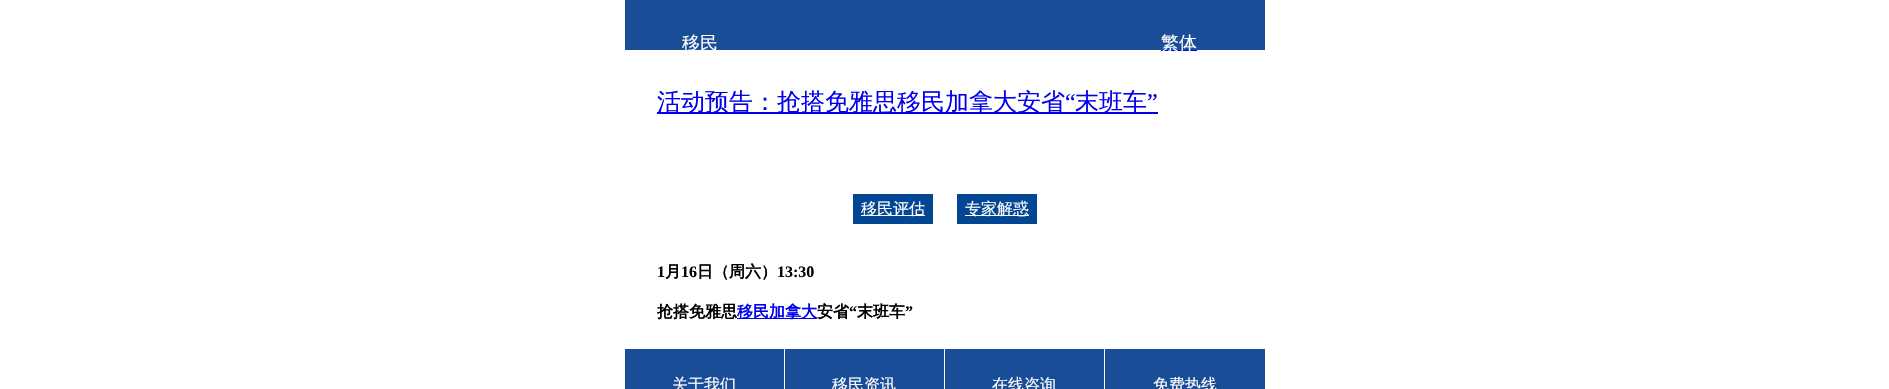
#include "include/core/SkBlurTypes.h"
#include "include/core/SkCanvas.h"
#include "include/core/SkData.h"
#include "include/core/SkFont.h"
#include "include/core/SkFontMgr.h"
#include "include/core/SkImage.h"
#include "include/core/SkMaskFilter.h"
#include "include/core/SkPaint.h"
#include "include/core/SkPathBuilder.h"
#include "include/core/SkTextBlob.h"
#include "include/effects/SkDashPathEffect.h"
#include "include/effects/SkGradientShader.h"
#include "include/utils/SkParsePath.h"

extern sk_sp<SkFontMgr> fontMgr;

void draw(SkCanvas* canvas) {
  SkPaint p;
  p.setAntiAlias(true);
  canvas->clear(SK_ColorWHITE);
  p.setColor(SkColorSetRGB(26, 77, 151));
  canvas->drawRect(SkRect::MakeLTRB(625, 0, 1265, 50), p);
  p.setColor(SkColorSetRGB(0, 0, 238));
  canvas->drawRect(SkRect::MakeLTRB(1161, 50, 1197, 51), p);
  canvas->drawRect(SkRect::MakeLTRB(657, 112, 1158, 114), p);
  p.setColor(SkColorSetRGB(3, 71, 148));
  canvas->drawRect(SkRect::MakeLTRB(853, 194, 933, 224), p);
  p.setColor(SK_ColorWHITE);
  canvas->drawRect(SkRect::MakeLTRB(861, 215, 925, 216), p);
  p.setColor(SkColorSetRGB(3, 71, 148));
  canvas->drawRect(SkRect::MakeLTRB(957, 194, 1037, 224), p);
  p.setColor(SK_ColorWHITE);
  canvas->drawRect(SkRect::MakeLTRB(965, 215, 1029, 216), p);
  p.setColor(SkColorSetRGB(0, 0, 238));
  canvas->drawRect(SkRect::MakeLTRB(737, 318, 817, 319), p);
  p.setColor(SkColorSetRGB(26, 77, 151));
  canvas->drawRect(SkRect::MakeLTRB(625, 349, 784, 389), p);
  canvas->drawRect(SkRect::MakeLTRB(785, 349, 944, 389), p);
  canvas->drawRect(SkRect::MakeLTRB(945, 349, 1104, 389), p);
  canvas->drawRect(SkRect::MakeLTRB(1105, 349, 1265, 389), p);
  SkFont font1(fontMgr->matchFamilyStyle("WenQuanYi Zen Hei", SkFontStyle(500, SkFontStyle::kNormal_Width, SkFontStyle::kUpright_Slant)), 18);
  font1.setSubpixel(true);
  p.setColor(SK_ColorWHITE);
  canvas->drawString("移民", 682, 49, font1, p);
  canvas->drawString("繁体", 1161, 49, font1, p);
  SkFont font2(fontMgr->matchFamilyStyle("WenQuanYi Zen Hei", SkFontStyle(500, SkFontStyle::kNormal_Width, SkFontStyle::kUpright_Slant)), 24);
  font2.setSubpixel(true);
  p.setColor(SkColorSetRGB(0, 0, 238));
  canvas->drawString("活动预告：抢搭免雅思移民加拿大安省", 657, 110, font2, p);
  SkFont font3(fontMgr->matchFamilyStyle("Liberation Serif", SkFontStyle::Normal()), 24);
  font3.setSubpixel(true);
  canvas->drawString("“", 1065, 110, font3, p);
  canvas->drawString("末班车", 1075, 110, font2, p);
  canvas->drawString("”", 1147, 110, font3, p);
  SkFont font4(fontMgr->matchFamilyStyle("WenQuanYi Zen Hei", SkFontStyle(500, SkFontStyle::kNormal_Width, SkFontStyle::kUpright_Slant)), 16);
  font4.setSubpixel(true);
  p.setColor(SK_ColorWHITE);
  canvas->drawString("移民评估", 861, 214, font4, p);
  canvas->drawString("专家解惑", 965, 214, font4, p);
  SkFont font5(fontMgr->matchFamilyStyle("Liberation Serif", SkFontStyle::Bold()), 16);
  font5.setSubpixel(true);
  p.setColor(SK_ColorBLACK);
  canvas->drawString("1", 657, 277, font5, p);
  SkFont font6(fontMgr->matchFamilyStyle("WenQuanYi Zen Hei", SkFontStyle::Bold()), 16);
  font6.setSubpixel(true);
  canvas->drawString("月", 665, 277, font6, p);
  canvas->drawString("16", 681, 277, font5, p);
  canvas->drawString("日（周六）", 697, 277, font6, p);
  canvas->drawString("13:30", 777, 277, font5, p);
  canvas->drawString("抢搭免雅思", 657, 317, font6, p);
  p.setColor(SkColorSetRGB(0, 0, 238));
  canvas->drawString("移民加拿大", 737, 317, font6, p);
  p.setColor(SK_ColorBLACK);
  canvas->drawString("安省", 817, 317, font6, p);
  canvas->drawString("“", 849, 317, font5, p);
  canvas->drawString("末班车", 857, 317, font6, p);
  canvas->drawString("”", 905, 317, font5, p);
  p.setColor(SK_ColorWHITE);
  canvas->drawString("关于我们", 672, 390, font4, p);
  canvas->drawString("移民资讯", 832, 390, font4, p);
  canvas->drawString("在线咨询", 992, 390, font4, p);
  canvas->drawString("免费热线", 1153, 390, font4, p);
}
